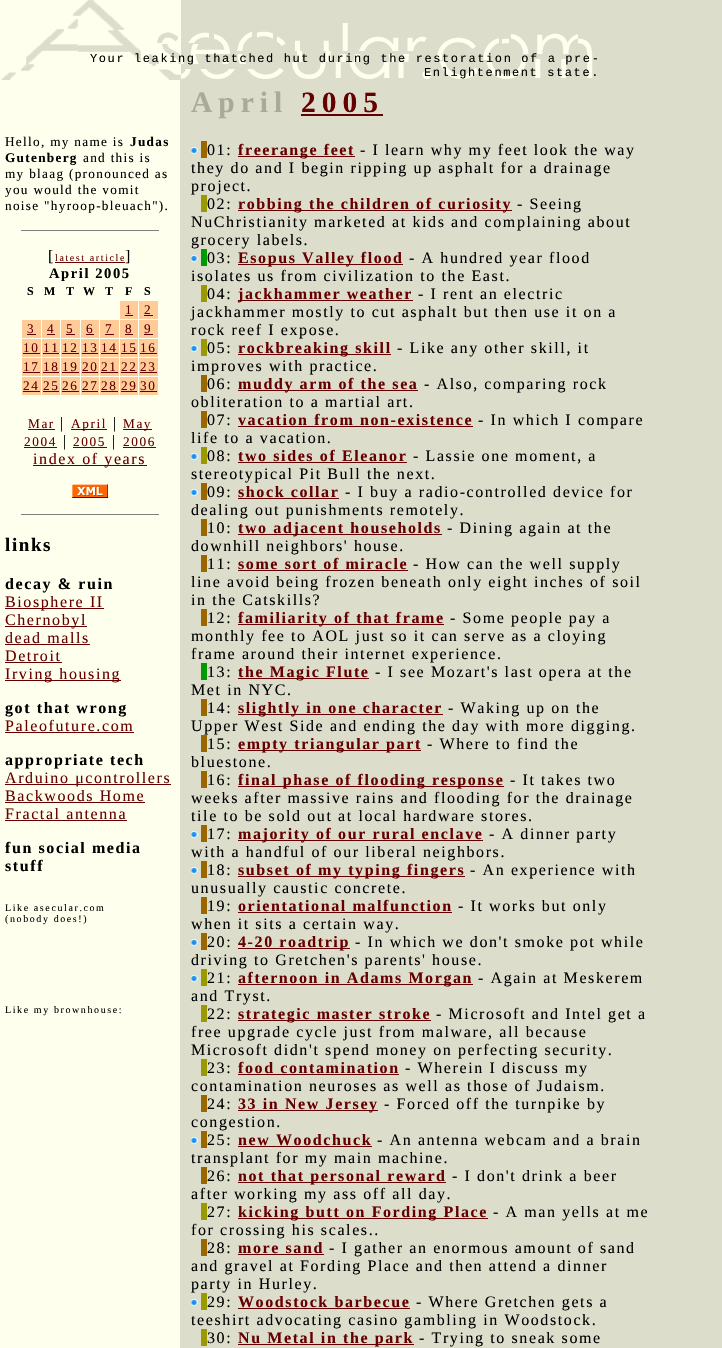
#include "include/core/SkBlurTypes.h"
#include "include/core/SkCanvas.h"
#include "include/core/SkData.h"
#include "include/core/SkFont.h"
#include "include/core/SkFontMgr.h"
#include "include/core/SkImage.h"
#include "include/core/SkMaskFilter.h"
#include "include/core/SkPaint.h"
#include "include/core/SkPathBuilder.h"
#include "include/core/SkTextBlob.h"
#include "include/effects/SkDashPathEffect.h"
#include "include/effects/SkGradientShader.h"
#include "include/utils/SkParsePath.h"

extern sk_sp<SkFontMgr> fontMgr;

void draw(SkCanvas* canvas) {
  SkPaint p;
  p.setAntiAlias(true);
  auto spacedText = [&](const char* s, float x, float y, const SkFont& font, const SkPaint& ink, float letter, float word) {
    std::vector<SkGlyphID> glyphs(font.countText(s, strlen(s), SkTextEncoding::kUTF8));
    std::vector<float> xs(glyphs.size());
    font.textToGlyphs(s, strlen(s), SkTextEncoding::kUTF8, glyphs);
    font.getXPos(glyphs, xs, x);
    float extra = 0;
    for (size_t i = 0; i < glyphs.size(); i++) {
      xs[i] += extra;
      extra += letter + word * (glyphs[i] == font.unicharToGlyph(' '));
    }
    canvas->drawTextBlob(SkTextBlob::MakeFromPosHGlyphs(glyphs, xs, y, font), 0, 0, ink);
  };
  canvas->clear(SkColorSetRGB(221, 221, 204));
  canvas->drawImageRect(SkImages::DeferredFromEncodedData(SkData::MakeFromFileName("images/1.png")), SkRect::MakeLTRB(0, 0, 593, 80), SkSamplingOptions());
  p.setColor(SkColorSetRGB(255, 255, 238));
  canvas->drawRect(SkRect::MakeLTRB(0, 80, 180, 1348), p);
  p.setColor(SkColorSetRGB(128, 128, 128));
  canvas->drawRect(SkRect::MakeLTRB(21, 230, 159, 231), p);
  p.setColor(SkColorSetRGB(102, 0, 0));
  canvas->drawRect(SkRect::MakeLTRB(55, 262, 125, 263), p);
  p.setColor(SkColorSetRGB(255, 204, 153));
  canvas->drawRect(SkRect::MakeLTRB(120, 301, 138, 319), p);
  p.setColor(SkColorSetRGB(102, 0, 0));
  canvas->drawRect(SkRect::MakeLTRB(125, 315, 133, 316), p);
  p.setColor(SkColorSetRGB(255, 204, 153));
  canvas->drawRect(SkRect::MakeLTRB(139, 301, 158, 319), p);
  p.setColor(SkColorSetRGB(102, 0, 0));
  canvas->drawRect(SkRect::MakeLTRB(144, 315, 153, 316), p);
  p.setColor(SkColorSetRGB(255, 204, 153));
  canvas->drawRect(SkRect::MakeLTRB(22, 320, 41, 338), p);
  p.setColor(SkColorSetRGB(102, 0, 0));
  canvas->drawRect(SkRect::MakeLTRB(27, 334, 36, 335), p);
  p.setColor(SkColorSetRGB(255, 204, 153));
  canvas->drawRect(SkRect::MakeLTRB(42, 320, 60, 338), p);
  p.setColor(SkColorSetRGB(102, 0, 0));
  canvas->drawRect(SkRect::MakeLTRB(47, 334, 55, 335), p);
  p.setColor(SkColorSetRGB(255, 204, 153));
  canvas->drawRect(SkRect::MakeLTRB(61, 320, 80, 338), p);
  p.setColor(SkColorSetRGB(102, 0, 0));
  canvas->drawRect(SkRect::MakeLTRB(66, 334, 75, 335), p);
  p.setColor(SkColorSetRGB(255, 204, 153));
  canvas->drawRect(SkRect::MakeLTRB(81, 320, 99, 338), p);
  p.setColor(SkColorSetRGB(102, 0, 0));
  canvas->drawRect(SkRect::MakeLTRB(86, 334, 94, 335), p);
  p.setColor(SkColorSetRGB(255, 204, 153));
  canvas->drawRect(SkRect::MakeLTRB(100, 320, 119, 338), p);
  p.setColor(SkColorSetRGB(102, 0, 0));
  canvas->drawRect(SkRect::MakeLTRB(105, 334, 114, 335), p);
  p.setColor(SkColorSetRGB(255, 204, 153));
  canvas->drawRect(SkRect::MakeLTRB(120, 320, 138, 338), p);
  p.setColor(SkColorSetRGB(102, 0, 0));
  canvas->drawRect(SkRect::MakeLTRB(125, 334, 133, 335), p);
  p.setColor(SkColorSetRGB(255, 204, 153));
  canvas->drawRect(SkRect::MakeLTRB(139, 320, 158, 338), p);
  p.setColor(SkColorSetRGB(102, 0, 0));
  canvas->drawRect(SkRect::MakeLTRB(144, 334, 153, 335), p);
  p.setColor(SkColorSetRGB(255, 204, 153));
  canvas->drawRect(SkRect::MakeLTRB(22, 339, 41, 357), p);
  p.setColor(SkColorSetRGB(102, 0, 0));
  canvas->drawRect(SkRect::MakeLTRB(23, 353, 40, 354), p);
  p.setColor(SkColorSetRGB(255, 204, 153));
  canvas->drawRect(SkRect::MakeLTRB(42, 339, 60, 357), p);
  p.setColor(SkColorSetRGB(102, 0, 0));
  canvas->drawRect(SkRect::MakeLTRB(43, 353, 59, 354), p);
  p.setColor(SkColorSetRGB(255, 204, 153));
  canvas->drawRect(SkRect::MakeLTRB(61, 339, 80, 357), p);
  p.setColor(SkColorSetRGB(102, 0, 0));
  canvas->drawRect(SkRect::MakeLTRB(62, 353, 79, 354), p);
  p.setColor(SkColorSetRGB(255, 204, 153));
  canvas->drawRect(SkRect::MakeLTRB(81, 339, 99, 357), p);
  p.setColor(SkColorSetRGB(102, 0, 0));
  canvas->drawRect(SkRect::MakeLTRB(82, 353, 98, 354), p);
  p.setColor(SkColorSetRGB(255, 204, 153));
  canvas->drawRect(SkRect::MakeLTRB(100, 339, 119, 357), p);
  p.setColor(SkColorSetRGB(102, 0, 0));
  canvas->drawRect(SkRect::MakeLTRB(101, 353, 118, 354), p);
  p.setColor(SkColorSetRGB(255, 204, 153));
  canvas->drawRect(SkRect::MakeLTRB(120, 339, 138, 357), p);
  p.setColor(SkColorSetRGB(102, 0, 0));
  canvas->drawRect(SkRect::MakeLTRB(121, 353, 137, 354), p);
  p.setColor(SkColorSetRGB(255, 204, 153));
  canvas->drawRect(SkRect::MakeLTRB(139, 339, 158, 357), p);
  p.setColor(SkColorSetRGB(102, 0, 0));
  canvas->drawRect(SkRect::MakeLTRB(140, 353, 157, 354), p);
  p.setColor(SkColorSetRGB(255, 204, 153));
  canvas->drawRect(SkRect::MakeLTRB(22, 358, 41, 376), p);
  p.setColor(SkColorSetRGB(102, 0, 0));
  canvas->drawRect(SkRect::MakeLTRB(23, 372, 40, 373), p);
  p.setColor(SkColorSetRGB(255, 204, 153));
  canvas->drawRect(SkRect::MakeLTRB(42, 358, 60, 376), p);
  p.setColor(SkColorSetRGB(102, 0, 0));
  canvas->drawRect(SkRect::MakeLTRB(43, 372, 59, 373), p);
  p.setColor(SkColorSetRGB(255, 204, 153));
  canvas->drawRect(SkRect::MakeLTRB(61, 358, 80, 376), p);
  p.setColor(SkColorSetRGB(102, 0, 0));
  canvas->drawRect(SkRect::MakeLTRB(62, 372, 79, 373), p);
  p.setColor(SkColorSetRGB(255, 204, 153));
  canvas->drawRect(SkRect::MakeLTRB(81, 358, 99, 376), p);
  p.setColor(SkColorSetRGB(102, 0, 0));
  canvas->drawRect(SkRect::MakeLTRB(82, 372, 98, 373), p);
  p.setColor(SkColorSetRGB(255, 204, 153));
  canvas->drawRect(SkRect::MakeLTRB(100, 358, 119, 376), p);
  p.setColor(SkColorSetRGB(102, 0, 0));
  canvas->drawRect(SkRect::MakeLTRB(101, 372, 118, 373), p);
  p.setColor(SkColorSetRGB(255, 204, 153));
  canvas->drawRect(SkRect::MakeLTRB(120, 358, 138, 376), p);
  p.setColor(SkColorSetRGB(102, 0, 0));
  canvas->drawRect(SkRect::MakeLTRB(121, 372, 137, 373), p);
  p.setColor(SkColorSetRGB(255, 204, 153));
  canvas->drawRect(SkRect::MakeLTRB(139, 358, 158, 376), p);
  p.setColor(SkColorSetRGB(102, 0, 0));
  canvas->drawRect(SkRect::MakeLTRB(140, 372, 157, 373), p);
  p.setColor(SkColorSetRGB(255, 204, 153));
  canvas->drawRect(SkRect::MakeLTRB(22, 377, 41, 395), p);
  p.setColor(SkColorSetRGB(102, 0, 0));
  canvas->drawRect(SkRect::MakeLTRB(23, 391, 40, 392), p);
  p.setColor(SkColorSetRGB(255, 204, 153));
  canvas->drawRect(SkRect::MakeLTRB(42, 377, 60, 395), p);
  p.setColor(SkColorSetRGB(102, 0, 0));
  canvas->drawRect(SkRect::MakeLTRB(43, 391, 59, 392), p);
  p.setColor(SkColorSetRGB(255, 204, 153));
  canvas->drawRect(SkRect::MakeLTRB(61, 377, 80, 395), p);
  p.setColor(SkColorSetRGB(102, 0, 0));
  canvas->drawRect(SkRect::MakeLTRB(62, 391, 79, 392), p);
  p.setColor(SkColorSetRGB(255, 204, 153));
  canvas->drawRect(SkRect::MakeLTRB(81, 377, 99, 395), p);
  p.setColor(SkColorSetRGB(102, 0, 0));
  canvas->drawRect(SkRect::MakeLTRB(82, 391, 98, 392), p);
  p.setColor(SkColorSetRGB(255, 204, 153));
  canvas->drawRect(SkRect::MakeLTRB(100, 377, 119, 395), p);
  p.setColor(SkColorSetRGB(102, 0, 0));
  canvas->drawRect(SkRect::MakeLTRB(101, 391, 118, 392), p);
  p.setColor(SkColorSetRGB(255, 204, 153));
  canvas->drawRect(SkRect::MakeLTRB(120, 377, 138, 395), p);
  p.setColor(SkColorSetRGB(102, 0, 0));
  canvas->drawRect(SkRect::MakeLTRB(121, 391, 137, 392), p);
  p.setColor(SkColorSetRGB(255, 204, 153));
  canvas->drawRect(SkRect::MakeLTRB(139, 377, 158, 395), p);
  p.setColor(SkColorSetRGB(102, 0, 0));
  canvas->drawRect(SkRect::MakeLTRB(140, 391, 157, 392), p);
  canvas->drawRect(SkRect::MakeLTRB(28, 429, 55, 430), p);
  canvas->drawRect(SkRect::MakeLTRB(71, 429, 107, 430), p);
  canvas->drawRect(SkRect::MakeLTRB(123, 429, 152, 430), p);
  canvas->drawRect(SkRect::MakeLTRB(24, 447, 57, 448), p);
  canvas->drawRect(SkRect::MakeLTRB(73, 447, 107, 448), p);
  canvas->drawRect(SkRect::MakeLTRB(123, 447, 156, 448), p);
  canvas->drawRect(SkRect::MakeLTRB(33, 465, 147, 466), p);
  canvas->drawImageRect(SkImages::DeferredFromEncodedData(SkData::MakeFromFileName("images/2.png")), SkRect::MakeLTRB(72, 484, 108, 498), SkSamplingOptions());
  p.setColor(SkColorSetRGB(128, 128, 128));
  canvas->drawRect(SkRect::MakeLTRB(21, 514, 159, 515), p);
  p.setColor(SkColorSetRGB(102, 0, 0));
  canvas->drawRect(SkRect::MakeLTRB(5, 608, 104, 609), p);
  canvas->drawRect(SkRect::MakeLTRB(5, 626, 87, 627), p);
  canvas->drawRect(SkRect::MakeLTRB(5, 644, 90, 645), p);
  canvas->drawRect(SkRect::MakeLTRB(5, 662, 62, 663), p);
  canvas->drawRect(SkRect::MakeLTRB(5, 680, 121, 681), p);
  canvas->drawRect(SkRect::MakeLTRB(5, 732, 134, 733), p);
  canvas->drawRect(SkRect::MakeLTRB(5, 784, 171, 785), p);
  canvas->drawRect(SkRect::MakeLTRB(5, 802, 145, 803), p);
  canvas->drawRect(SkRect::MakeLTRB(5, 820, 127, 821), p);
  canvas->drawRect(SkRect::MakeLTRB(301, 114, 383, 116), p);
  canvas->drawImageRect(SkImages::DeferredFromEncodedData(SkData::MakeFromFileName("images/3.png")), SkRect::MakeLTRB(191, 147, 198, 154), SkSamplingOptions());
  p.setColor(SkColorSetRGB(153, 102, 0));
  canvas->drawRect(SkRect::MakeLTRB(201, 141, 207, 158), p);
  p.setColor(SkColorSetRGB(102, 0, 0));
  canvas->drawRect(SkRect::MakeLTRB(238, 156, 355, 157), p);
  p.setColor(SkColorSetRGB(153, 153, 0));
  canvas->drawRect(SkRect::MakeLTRB(201, 195, 207, 212), p);
  p.setColor(SkColorSetRGB(102, 0, 0));
  canvas->drawRect(SkRect::MakeLTRB(238, 210, 512, 211), p);
  canvas->drawImageRect(SkImages::DeferredFromEncodedData(SkData::MakeFromFileName("images/3.png")), SkRect::MakeLTRB(191, 255, 198, 262), SkSamplingOptions());
  p.setColor(SkColorSetRGB(0, 153, 0));
  canvas->drawRect(SkRect::MakeLTRB(201, 249, 207, 266), p);
  p.setColor(SkColorSetRGB(102, 0, 0));
  canvas->drawRect(SkRect::MakeLTRB(238, 264, 403, 265), p);
  p.setColor(SkColorSetRGB(153, 153, 0));
  canvas->drawRect(SkRect::MakeLTRB(201, 285, 207, 302), p);
  p.setColor(SkColorSetRGB(102, 0, 0));
  canvas->drawRect(SkRect::MakeLTRB(238, 300, 413, 301), p);
  canvas->drawImageRect(SkImages::DeferredFromEncodedData(SkData::MakeFromFileName("images/3.png")), SkRect::MakeLTRB(191, 345, 198, 352), SkSamplingOptions());
  p.setColor(SkColorSetRGB(153, 153, 0));
  canvas->drawRect(SkRect::MakeLTRB(201, 339, 207, 356), p);
  p.setColor(SkColorSetRGB(102, 0, 0));
  canvas->drawRect(SkRect::MakeLTRB(238, 354, 391, 355), p);
  p.setColor(SkColorSetRGB(153, 102, 0));
  canvas->drawRect(SkRect::MakeLTRB(201, 375, 207, 392), p);
  p.setColor(SkColorSetRGB(102, 0, 0));
  canvas->drawRect(SkRect::MakeLTRB(238, 390, 418, 391), p);
  p.setColor(SkColorSetRGB(153, 102, 0));
  canvas->drawRect(SkRect::MakeLTRB(201, 411, 207, 428), p);
  p.setColor(SkColorSetRGB(102, 0, 0));
  canvas->drawRect(SkRect::MakeLTRB(238, 426, 473, 427), p);
  canvas->drawImageRect(SkImages::DeferredFromEncodedData(SkData::MakeFromFileName("images/3.png")), SkRect::MakeLTRB(191, 453, 198, 460), SkSamplingOptions());
  p.setColor(SkColorSetRGB(153, 153, 0));
  canvas->drawRect(SkRect::MakeLTRB(201, 447, 207, 464), p);
  p.setColor(SkColorSetRGB(102, 0, 0));
  canvas->drawRect(SkRect::MakeLTRB(238, 462, 407, 463), p);
  canvas->drawImageRect(SkImages::DeferredFromEncodedData(SkData::MakeFromFileName("images/3.png")), SkRect::MakeLTRB(191, 489, 198, 496), SkSamplingOptions());
  p.setColor(SkColorSetRGB(153, 102, 0));
  canvas->drawRect(SkRect::MakeLTRB(201, 483, 207, 500), p);
  p.setColor(SkColorSetRGB(102, 0, 0));
  canvas->drawRect(SkRect::MakeLTRB(238, 498, 339, 499), p);
  p.setColor(SkColorSetRGB(153, 102, 0));
  canvas->drawRect(SkRect::MakeLTRB(201, 519, 207, 536), p);
  p.setColor(SkColorSetRGB(102, 0, 0));
  canvas->drawRect(SkRect::MakeLTRB(238, 534, 442, 535), p);
  p.setColor(SkColorSetRGB(153, 102, 0));
  canvas->drawRect(SkRect::MakeLTRB(201, 555, 207, 572), p);
  p.setColor(SkColorSetRGB(102, 0, 0));
  canvas->drawRect(SkRect::MakeLTRB(238, 570, 408, 571), p);
  p.setColor(SkColorSetRGB(153, 102, 0));
  canvas->drawRect(SkRect::MakeLTRB(201, 609, 207, 626), p);
  p.setColor(SkColorSetRGB(102, 0, 0));
  canvas->drawRect(SkRect::MakeLTRB(238, 624, 444, 625), p);
  p.setColor(SkColorSetRGB(0, 153, 0));
  canvas->drawRect(SkRect::MakeLTRB(201, 663, 207, 680), p);
  p.setColor(SkColorSetRGB(102, 0, 0));
  canvas->drawRect(SkRect::MakeLTRB(238, 678, 369, 679), p);
  p.setColor(SkColorSetRGB(153, 102, 0));
  canvas->drawRect(SkRect::MakeLTRB(201, 699, 207, 716), p);
  p.setColor(SkColorSetRGB(102, 0, 0));
  canvas->drawRect(SkRect::MakeLTRB(238, 714, 443, 715), p);
  p.setColor(SkColorSetRGB(153, 102, 0));
  canvas->drawRect(SkRect::MakeLTRB(201, 735, 207, 752), p);
  p.setColor(SkColorSetRGB(102, 0, 0));
  canvas->drawRect(SkRect::MakeLTRB(238, 750, 421, 751), p);
  p.setColor(SkColorSetRGB(153, 102, 0));
  canvas->drawRect(SkRect::MakeLTRB(201, 771, 207, 788), p);
  p.setColor(SkColorSetRGB(102, 0, 0));
  canvas->drawRect(SkRect::MakeLTRB(238, 786, 504, 787), p);
  canvas->drawImageRect(SkImages::DeferredFromEncodedData(SkData::MakeFromFileName("images/3.png")), SkRect::MakeLTRB(191, 831, 198, 838), SkSamplingOptions());
  p.setColor(SkColorSetRGB(153, 102, 0));
  canvas->drawRect(SkRect::MakeLTRB(201, 825, 207, 842), p);
  p.setColor(SkColorSetRGB(102, 0, 0));
  canvas->drawRect(SkRect::MakeLTRB(238, 840, 483, 841), p);
  canvas->drawImageRect(SkImages::DeferredFromEncodedData(SkData::MakeFromFileName("images/3.png")), SkRect::MakeLTRB(191, 867, 198, 874), SkSamplingOptions());
  p.setColor(SkColorSetRGB(153, 102, 0));
  canvas->drawRect(SkRect::MakeLTRB(201, 861, 207, 878), p);
  p.setColor(SkColorSetRGB(102, 0, 0));
  canvas->drawRect(SkRect::MakeLTRB(238, 876, 465, 877), p);
  p.setColor(SkColorSetRGB(153, 102, 0));
  canvas->drawRect(SkRect::MakeLTRB(201, 897, 207, 914), p);
  p.setColor(SkColorSetRGB(102, 0, 0));
  canvas->drawRect(SkRect::MakeLTRB(238, 912, 452, 913), p);
  canvas->drawImageRect(SkImages::DeferredFromEncodedData(SkData::MakeFromFileName("images/3.png")), SkRect::MakeLTRB(191, 939, 198, 946), SkSamplingOptions());
  p.setColor(SkColorSetRGB(153, 102, 0));
  canvas->drawRect(SkRect::MakeLTRB(201, 933, 207, 950), p);
  p.setColor(SkColorSetRGB(102, 0, 0));
  canvas->drawRect(SkRect::MakeLTRB(238, 948, 350, 949), p);
  canvas->drawImageRect(SkImages::DeferredFromEncodedData(SkData::MakeFromFileName("images/3.png")), SkRect::MakeLTRB(191, 975, 198, 982), SkSamplingOptions());
  p.setColor(SkColorSetRGB(153, 153, 0));
  canvas->drawRect(SkRect::MakeLTRB(201, 969, 207, 986), p);
  p.setColor(SkColorSetRGB(102, 0, 0));
  canvas->drawRect(SkRect::MakeLTRB(238, 984, 473, 985), p);
  p.setColor(SkColorSetRGB(153, 153, 0));
  canvas->drawRect(SkRect::MakeLTRB(201, 1005, 207, 1022), p);
  p.setColor(SkColorSetRGB(102, 0, 0));
  canvas->drawRect(SkRect::MakeLTRB(238, 1020, 431, 1021), p);
  p.setColor(SkColorSetRGB(153, 153, 0));
  canvas->drawRect(SkRect::MakeLTRB(201, 1059, 207, 1076), p);
  p.setColor(SkColorSetRGB(102, 0, 0));
  canvas->drawRect(SkRect::MakeLTRB(238, 1074, 399, 1075), p);
  p.setColor(SkColorSetRGB(153, 102, 0));
  canvas->drawRect(SkRect::MakeLTRB(201, 1095, 207, 1112), p);
  p.setColor(SkColorSetRGB(102, 0, 0));
  canvas->drawRect(SkRect::MakeLTRB(238, 1110, 378, 1111), p);
  canvas->drawImageRect(SkImages::DeferredFromEncodedData(SkData::MakeFromFileName("images/3.png")), SkRect::MakeLTRB(191, 1137, 198, 1144), SkSamplingOptions());
  p.setColor(SkColorSetRGB(153, 102, 0));
  canvas->drawRect(SkRect::MakeLTRB(201, 1131, 207, 1148), p);
  p.setColor(SkColorSetRGB(102, 0, 0));
  canvas->drawRect(SkRect::MakeLTRB(238, 1146, 372, 1147), p);
  p.setColor(SkColorSetRGB(153, 102, 0));
  canvas->drawRect(SkRect::MakeLTRB(201, 1167, 207, 1184), p);
  p.setColor(SkColorSetRGB(102, 0, 0));
  canvas->drawRect(SkRect::MakeLTRB(238, 1182, 446, 1183), p);
  p.setColor(SkColorSetRGB(153, 153, 0));
  canvas->drawRect(SkRect::MakeLTRB(201, 1203, 207, 1220), p);
  p.setColor(SkColorSetRGB(102, 0, 0));
  canvas->drawRect(SkRect::MakeLTRB(238, 1218, 488, 1219), p);
  p.setColor(SkColorSetRGB(153, 102, 0));
  canvas->drawRect(SkRect::MakeLTRB(201, 1239, 207, 1256), p);
  p.setColor(SkColorSetRGB(102, 0, 0));
  canvas->drawRect(SkRect::MakeLTRB(238, 1254, 324, 1255), p);
  canvas->drawImageRect(SkImages::DeferredFromEncodedData(SkData::MakeFromFileName("images/3.png")), SkRect::MakeLTRB(191, 1299, 198, 1306), SkSamplingOptions());
  p.setColor(SkColorSetRGB(153, 153, 0));
  canvas->drawRect(SkRect::MakeLTRB(201, 1293, 207, 1310), p);
  p.setColor(SkColorSetRGB(102, 0, 0));
  canvas->drawRect(SkRect::MakeLTRB(238, 1308, 410, 1309), p);
  p.setColor(SkColorSetRGB(153, 153, 0));
  canvas->drawRect(SkRect::MakeLTRB(201, 1329, 207, 1346), p);
  p.setColor(SkColorSetRGB(102, 0, 0));
  canvas->drawRect(SkRect::MakeLTRB(238, 1344, 414, 1345), p);
  SkFont font1(fontMgr->matchFamilyStyle("Liberation Mono", SkFontStyle::Normal()), 12);
  font1.setSubpixel(true);
  p.setColor(SK_ColorBLACK);
  spacedText("Your leaking thatched hut during the restoration of a pre-", 90, 62, font1, p, 1.6f, 0);
  spacedText("Enlightenment state.", 424, 76, font1, p, 1.6f, 0);
  SkFont font2(fontMgr->matchFamilyStyle("Liberation Serif", SkFontStyle::Normal()), 13.25f);
  font2.setSubpixel(true);
  spacedText("Hello, my name is", 5, 146, font2, p, 1.3f, 0);
  SkFont font3(fontMgr->matchFamilyStyle("Liberation Serif", SkFontStyle::Bold()), 13.25f);
  font3.setSubpixel(true);
  spacedText("Judas", 130, 146, font3, p, 1.3f, 0);
  spacedText("Gutenberg", 5, 162, font3, p, 1.3f, 0);
  spacedText("and this is", 83, 162, font2, p, 1.3f, 0);
  spacedText("my blaag (pronounced as", 5, 178, font2, p, 1.3f, 0);
  spacedText("you would the vomit", 5, 194, font2, p, 1.3f, 0);
  spacedText("noise \"hyroop-bleuach\").", 5, 210, font2, p, 1.3f, 0);
  SkFont font4(fontMgr->matchFamilyStyle("Liberation Serif", SkFontStyle::Normal()), 16);
  font4.setSubpixel(true);
  spacedText("[", 48, 261, font4, p, 1.6f, 0);
  SkFont font5(fontMgr->matchFamilyStyle("Liberation Serif", SkFontStyle::Normal()), 10);
  font5.setSubpixel(true);
  p.setColor(SkColorSetRGB(102, 0, 0));
  spacedText("latest article", 55, 261, font5, p, 1.6f, 0);
  p.setColor(SK_ColorBLACK);
  spacedText("]", 125, 261, font4, p, 1.6f, 0);
  SkFont font6(fontMgr->matchFamilyStyle("Liberation Serif", SkFontStyle::Bold()), 14.5f);
  font6.setSubpixel(true);
  spacedText("April 2005", 49, 278, font6, p, 1.6f, 0);
  SkFont font7(fontMgr->matchFamilyStyle("Liberation Serif", SkFontStyle::Bold()), 12);
  font7.setSubpixel(true);
  spacedText("S", 27, 295, font7, p, 1.6f, 0);
  spacedText("M", 44, 295, font7, p, 1.6f, 0);
  spacedText("T", 66, 295, font7, p, 1.6f, 0);
  spacedText("W", 83, 295, font7, p, 1.6f, 0);
  spacedText("T", 105, 295, font7, p, 1.6f, 0);
  spacedText("F", 125, 295, font7, p, 1.6f, 0);
  spacedText("S", 144, 295, font7, p, 1.6f, 0);
  p.setColor(SkColorSetRGB(102, 0, 0));
  spacedText("1", 125, 314, font2, p, 1.6f, 0);
  spacedText("2", 144, 314, font2, p, 1.6f, 0);
  spacedText("3", 27, 333, font2, p, 1.6f, 0);
  spacedText("4", 47, 333, font2, p, 1.6f, 0);
  spacedText("5", 66, 333, font2, p, 1.6f, 0);
  spacedText("6", 86, 333, font2, p, 1.6f, 0);
  spacedText("7", 105, 333, font2, p, 1.6f, 0);
  spacedText("8", 125, 333, font2, p, 1.6f, 0);
  spacedText("9", 144, 333, font2, p, 1.6f, 0);
  spacedText("10", 23, 352, font2, p, 1.6f, 0);
  spacedText("11", 43, 352, font2, p, 1.6f, 0);
  spacedText("12", 62, 352, font2, p, 1.6f, 0);
  spacedText("13", 82, 352, font2, p, 1.6f, 0);
  spacedText("14", 101, 352, font2, p, 1.6f, 0);
  spacedText("15", 121, 352, font2, p, 1.6f, 0);
  spacedText("16", 140, 352, font2, p, 1.6f, 0);
  spacedText("17", 23, 371, font2, p, 1.6f, 0);
  spacedText("18", 43, 371, font2, p, 1.6f, 0);
  spacedText("19", 62, 371, font2, p, 1.6f, 0);
  spacedText("20", 82, 371, font2, p, 1.6f, 0);
  spacedText("21", 101, 371, font2, p, 1.6f, 0);
  spacedText("22", 121, 371, font2, p, 1.6f, 0);
  spacedText("23", 140, 371, font2, p, 1.6f, 0);
  spacedText("24", 23, 390, font2, p, 1.6f, 0);
  spacedText("25", 43, 390, font2, p, 1.6f, 0);
  spacedText("26", 62, 390, font2, p, 1.6f, 0);
  spacedText("27", 82, 390, font2, p, 1.6f, 0);
  spacedText("28", 101, 390, font2, p, 1.6f, 0);
  spacedText("29", 121, 390, font2, p, 1.6f, 0);
  spacedText("30", 140, 390, font2, p, 1.6f, 0);
  spacedText("Mar", 28, 428, font2, p, 1.6f, 0);
  p.setColor(SK_ColorBLACK);
  spacedText("|", 60, 428, font4, p, 1.6f, 0);
  p.setColor(SkColorSetRGB(102, 0, 0));
  spacedText("April", 71, 428, font2, p, 1.6f, 0);
  p.setColor(SK_ColorBLACK);
  spacedText("|", 113, 428, font4, p, 1.6f, 0);
  p.setColor(SkColorSetRGB(102, 0, 0));
  spacedText("May", 123, 428, font2, p, 1.6f, 0);
  spacedText("2004", 24, 446, font2, p, 1.6f, 0);
  p.setColor(SK_ColorBLACK);
  spacedText("|", 63, 446, font4, p, 1.6f, 0);
  p.setColor(SkColorSetRGB(102, 0, 0));
  spacedText("2005", 73, 446, font2, p, 1.6f, 0);
  p.setColor(SK_ColorBLACK);
  spacedText("|", 112, 446, font4, p, 1.6f, 0);
  p.setColor(SkColorSetRGB(102, 0, 0));
  spacedText("2006", 123, 446, font2, p, 1.6f, 0);
  spacedText("index of years", 33, 464, font4, p, 1.6f, 0);
  SkFont font8(fontMgr->matchFamilyStyle("Liberation Serif", SkFontStyle::Bold()), 19);
  font8.setSubpixel(true);
  p.setColor(SK_ColorBLACK);
  spacedText("links", 5, 551, font8, p, 1.6f, 0);
  SkFont font9(fontMgr->matchFamilyStyle("Liberation Serif", SkFontStyle::Bold()), 16);
  font9.setSubpixel(true);
  spacedText("decay & ruin", 5, 589, font9, p, 1.6f, 0);
  p.setColor(SkColorSetRGB(102, 0, 0));
  spacedText("Biosphere II", 5, 607, font4, p, 1.6f, 0);
  spacedText("Chernobyl", 5, 625, font4, p, 1.6f, 0);
  spacedText("dead malls", 5, 643, font4, p, 1.6f, 0);
  spacedText("Detroit", 5, 661, font4, p, 1.6f, 0);
  spacedText("Irving housing", 5, 679, font4, p, 1.6f, 0);
  p.setColor(SK_ColorBLACK);
  spacedText("got that wrong", 5, 713, font9, p, 1.6f, 0);
  p.setColor(SkColorSetRGB(102, 0, 0));
  spacedText("Paleofuture.com", 5, 731, font4, p, 1.6f, 0);
  p.setColor(SK_ColorBLACK);
  spacedText("appropriate tech", 5, 765, font9, p, 1.6f, 0);
  p.setColor(SkColorSetRGB(102, 0, 0));
  spacedText("Arduino μcontrollers", 5, 783, font4, p, 1.6f, 0);
  spacedText("Backwoods Home", 5, 801, font4, p, 1.6f, 0);
  spacedText("Fractal antenna", 5, 819, font4, p, 1.6f, 0);
  p.setColor(SK_ColorBLACK);
  spacedText("fun social media", 5, 853, font9, p, 1.6f, 0);
  spacedText("stuff", 5, 871, font9, p, 1.6f, 0);
  spacedText("Like asecular.com", 5, 911, font5, p, 1.6f, 0);
  spacedText("(nobody does!)", 5, 922, font5, p, 1.6f, 0);
  spacedText("Like my brownhouse:", 5, 1013, font5, p, 1.6f, 0);
  SkFont font10(fontMgr->matchFamilyStyle("Liberation Serif", SkFontStyle::Bold()), 29.5f);
  font10.setSubpixel(true);
  p.setColor(SkColorSetRGB(170, 170, 153));
  spacedText("April", 191, 112, font10, p, 6, 0);
  p.setColor(SkColorSetRGB(102, 0, 0));
  spacedText("2005", 301, 112, font10, p, 6, 0);
  p.setColor(SK_ColorBLACK);
  spacedText("01:", 207, 155, font4, p, 1.6f, 0);
  p.setColor(SkColorSetRGB(102, 0, 0));
  spacedText("freerange feet", 238, 155, font9, p, 1.6f, 0);
  p.setColor(SK_ColorBLACK);
  spacedText("- I learn why my feet look the way", 360, 155, font4, p, 1.6f, 0);
  spacedText("they do and I begin ripping up asphalt for a drainage", 191, 173, font4, p, 1.6f, 0);
  spacedText("project.", 191, 191, font4, p, 1.6f, 0);
  spacedText("02:", 207, 209, font4, p, 1.6f, 0);
  p.setColor(SkColorSetRGB(102, 0, 0));
  spacedText("robbing the children of curiosity", 238, 209, font9, p, 1.6f, 0);
  p.setColor(SK_ColorBLACK);
  spacedText("- Seeing", 517, 209, font4, p, 1.6f, 0);
  spacedText("NuChristianity marketed at kids and complaining about", 191, 227, font4, p, 1.6f, 0);
  spacedText("grocery labels.", 191, 245, font4, p, 1.6f, 0);
  spacedText("03:", 207, 263, font4, p, 1.6f, 0);
  p.setColor(SkColorSetRGB(102, 0, 0));
  spacedText("Esopus Valley flood", 238, 263, font9, p, 1.6f, 0);
  p.setColor(SK_ColorBLACK);
  spacedText("- A hundred year flood", 409, 263, font4, p, 1.6f, 0);
  spacedText("isolates us from civilization to the East.", 191, 281, font4, p, 1.6f, 0);
  spacedText("04:", 207, 299, font4, p, 1.6f, 0);
  p.setColor(SkColorSetRGB(102, 0, 0));
  spacedText("jackhammer weather", 238, 299, font9, p, 1.6f, 0);
  p.setColor(SK_ColorBLACK);
  spacedText("- I rent an electric", 418, 299, font4, p, 1.6f, 0);
  spacedText("jackhammer mostly to cut asphalt but then use it on a", 191, 317, font4, p, 1.6f, 0);
  spacedText("rock reef I expose.", 191, 335, font4, p, 1.6f, 0);
  spacedText("05:", 207, 353, font4, p, 1.6f, 0);
  p.setColor(SkColorSetRGB(102, 0, 0));
  spacedText("rockbreaking skill", 238, 353, font9, p, 1.6f, 0);
  p.setColor(SK_ColorBLACK);
  spacedText("- Like any other skill, it", 397, 353, font4, p, 1.6f, 0);
  spacedText("improves with practice.", 191, 371, font4, p, 1.6f, 0);
  spacedText("06:", 207, 389, font4, p, 1.6f, 0);
  p.setColor(SkColorSetRGB(102, 0, 0));
  spacedText("muddy arm of the sea", 238, 389, font9, p, 1.6f, 0);
  p.setColor(SK_ColorBLACK);
  spacedText("- Also, comparing rock", 424, 389, font4, p, 1.6f, 0);
  spacedText("obliteration to a martial art.", 191, 407, font4, p, 1.6f, 0);
  spacedText("07:", 207, 425, font4, p, 1.6f, 0);
  p.setColor(SkColorSetRGB(102, 0, 0));
  spacedText("vacation from non-existence", 238, 425, font9, p, 1.6f, 0);
  p.setColor(SK_ColorBLACK);
  spacedText("- In which I compare", 478, 425, font4, p, 1.6f, 0);
  spacedText("life to a vacation.", 191, 443, font4, p, 1.6f, 0);
  spacedText("08:", 207, 461, font4, p, 1.6f, 0);
  p.setColor(SkColorSetRGB(102, 0, 0));
  spacedText("two sides of Eleanor", 238, 461, font9, p, 1.6f, 0);
  p.setColor(SK_ColorBLACK);
  spacedText("- Lassie one moment, a", 413, 461, font4, p, 1.6f, 0);
  spacedText("stereotypical Pit Bull the next.", 191, 479, font4, p, 1.6f, 0);
  spacedText("09:", 207, 497, font4, p, 1.6f, 0);
  p.setColor(SkColorSetRGB(102, 0, 0));
  spacedText("shock collar", 238, 497, font9, p, 1.6f, 0);
  p.setColor(SK_ColorBLACK);
  spacedText("- I buy a radio-controlled device for", 345, 497, font4, p, 1.6f, 0);
  spacedText("dealing out punishments remotely.", 191, 515, font4, p, 1.6f, 0);
  spacedText("10:", 207, 533, font4, p, 1.6f, 0);
  p.setColor(SkColorSetRGB(102, 0, 0));
  spacedText("two adjacent households", 238, 533, font9, p, 1.6f, 0);
  p.setColor(SK_ColorBLACK);
  spacedText("- Dining again at the", 447, 533, font4, p, 1.6f, 0);
  spacedText("downhill neighbors' house.", 191, 551, font4, p, 1.6f, 0);
  spacedText("11:", 207, 569, font4, p, 1.6f, 0);
  p.setColor(SkColorSetRGB(102, 0, 0));
  spacedText("some sort of miracle", 238, 569, font9, p, 1.6f, 0);
  p.setColor(SK_ColorBLACK);
  spacedText("- How can the well supply", 413, 569, font4, p, 1.6f, 0);
  spacedText("line avoid being frozen beneath only eight inches of soil", 191, 587, font4, p, 1.6f, 0);
  spacedText("in the Catskills?", 191, 605, font4, p, 1.6f, 0);
  spacedText("12:", 207, 623, font4, p, 1.6f, 0);
  p.setColor(SkColorSetRGB(102, 0, 0));
  spacedText("familiarity of that frame", 238, 623, font9, p, 1.6f, 0);
  p.setColor(SK_ColorBLACK);
  spacedText("- Some people pay a", 450, 623, font4, p, 1.6f, 0);
  spacedText("monthly fee to AOL just so it can serve as a cloying", 191, 641, font4, p, 1.6f, 0);
  spacedText("frame around their internet experience.", 191, 659, font4, p, 1.6f, 0);
  spacedText("13:", 207, 677, font4, p, 1.6f, 0);
  p.setColor(SkColorSetRGB(102, 0, 0));
  spacedText("the Magic Flute", 238, 677, font9, p, 1.6f, 0);
  p.setColor(SK_ColorBLACK);
  spacedText("- I see Mozart's last opera at the", 375, 677, font4, p, 1.6f, 0);
  spacedText("Met in NYC.", 191, 695, font4, p, 1.6f, 0);
  spacedText("14:", 207, 713, font4, p, 1.6f, 0);
  p.setColor(SkColorSetRGB(102, 0, 0));
  spacedText("slightly in one character", 238, 713, font9, p, 1.6f, 0);
  p.setColor(SK_ColorBLACK);
  spacedText("- Waking up on the", 448, 713, font4, p, 1.6f, 0);
  spacedText("Upper West Side and ending the day with more digging.", 191, 731, font4, p, 1.6f, 0);
  spacedText("15:", 207, 749, font4, p, 1.6f, 0);
  p.setColor(SkColorSetRGB(102, 0, 0));
  spacedText("empty triangular part", 238, 749, font9, p, 1.6f, 0);
  p.setColor(SK_ColorBLACK);
  spacedText("- Where to find the", 427, 749, font4, p, 1.6f, 0);
  spacedText("bluestone.", 191, 767, font4, p, 1.6f, 0);
  spacedText("16:", 207, 785, font4, p, 1.6f, 0);
  p.setColor(SkColorSetRGB(102, 0, 0));
  spacedText("final phase of flooding response", 238, 785, font9, p, 1.6f, 0);
  p.setColor(SK_ColorBLACK);
  spacedText("- It takes two", 510, 785, font4, p, 1.6f, 0);
  spacedText("weeks after massive rains and flooding for the drainage", 191, 803, font4, p, 1.6f, 0);
  spacedText("tile to be sold out at local hardware stores.", 191, 821, font4, p, 1.6f, 0);
  spacedText("17:", 207, 839, font4, p, 1.6f, 0);
  p.setColor(SkColorSetRGB(102, 0, 0));
  spacedText("majority of our rural enclave", 238, 839, font9, p, 1.6f, 0);
  p.setColor(SK_ColorBLACK);
  spacedText("- A dinner party", 489, 839, font4, p, 1.6f, 0);
  spacedText("with a handful of our liberal neighbors.", 191, 857, font4, p, 1.6f, 0);
  spacedText("18:", 207, 875, font4, p, 1.6f, 0);
  p.setColor(SkColorSetRGB(102, 0, 0));
  spacedText("subset of my typing fingers", 238, 875, font9, p, 1.6f, 0);
  p.setColor(SK_ColorBLACK);
  spacedText("- An experience with", 470, 875, font4, p, 1.6f, 0);
  spacedText("unusually caustic concrete.", 191, 893, font4, p, 1.6f, 0);
  spacedText("19:", 207, 911, font4, p, 1.6f, 0);
  p.setColor(SkColorSetRGB(102, 0, 0));
  spacedText("orientational malfunction", 238, 911, font9, p, 1.6f, 0);
  p.setColor(SK_ColorBLACK);
  spacedText("- It works but only", 458, 911, font4, p, 1.6f, 0);
  spacedText("when it sits a certain way.", 191, 929, font4, p, 1.6f, 0);
  spacedText("20:", 207, 947, font4, p, 1.6f, 0);
  p.setColor(SkColorSetRGB(102, 0, 0));
  spacedText("4-20 roadtrip", 238, 947, font9, p, 1.6f, 0);
  p.setColor(SK_ColorBLACK);
  spacedText("- In which we don't smoke pot while", 355, 947, font4, p, 1.6f, 0);
  spacedText("driving to Gretchen's parents' house.", 191, 965, font4, p, 1.6f, 0);
  spacedText("21:", 207, 983, font4, p, 1.6f, 0);
  p.setColor(SkColorSetRGB(102, 0, 0));
  spacedText("afternoon in Adams Morgan", 238, 983, font9, p, 1.6f, 0);
  p.setColor(SK_ColorBLACK);
  spacedText("- Again at Meskerem", 478, 983, font4, p, 1.6f, 0);
  spacedText("and Tryst.", 191, 1001, font4, p, 1.6f, 0);
  spacedText("22:", 207, 1019, font4, p, 1.6f, 0);
  p.setColor(SkColorSetRGB(102, 0, 0));
  spacedText("strategic master stroke", 238, 1019, font9, p, 1.6f, 0);
  p.setColor(SK_ColorBLACK);
  spacedText("- Microsoft and Intel get a", 436, 1019, font4, p, 1.6f, 0);
  spacedText("free upgrade cycle just from malware, all because", 191, 1037, font4, p, 1.6f, 0);
  spacedText("Microsoft didn't spend money on perfecting security.", 191, 1055, font4, p, 1.6f, 0);
  spacedText("23:", 207, 1073, font4, p, 1.6f, 0);
  p.setColor(SkColorSetRGB(102, 0, 0));
  spacedText("food contamination", 238, 1073, font9, p, 1.6f, 0);
  p.setColor(SK_ColorBLACK);
  spacedText("- Wherein I discuss my", 405, 1073, font4, p, 1.6f, 0);
  spacedText("contamination neuroses as well as those of Judaism.", 191, 1091, font4, p, 1.6f, 0);
  spacedText("24:", 207, 1109, font4, p, 1.6f, 0);
  p.setColor(SkColorSetRGB(102, 0, 0));
  spacedText("33 in New Jersey", 238, 1109, font9, p, 1.6f, 0);
  p.setColor(SK_ColorBLACK);
  spacedText("- Forced off the turnpike by", 384, 1109, font4, p, 1.6f, 0);
  spacedText("congestion.", 191, 1127, font4, p, 1.6f, 0);
  spacedText("25:", 207, 1145, font4, p, 1.6f, 0);
  p.setColor(SkColorSetRGB(102, 0, 0));
  spacedText("new Woodchuck", 238, 1145, font9, p, 1.6f, 0);
  p.setColor(SK_ColorBLACK);
  spacedText("- An antenna webcam and a brain", 377, 1145, font4, p, 1.6f, 0);
  spacedText("transplant for my main machine.", 191, 1163, font4, p, 1.6f, 0);
  spacedText("26:", 207, 1181, font4, p, 1.6f, 0);
  p.setColor(SkColorSetRGB(102, 0, 0));
  spacedText("not that personal reward", 238, 1181, font9, p, 1.6f, 0);
  p.setColor(SK_ColorBLACK);
  spacedText("- I don't drink a beer", 452, 1181, font4, p, 1.6f, 0);
  spacedText("after working my ass off all day.", 191, 1199, font4, p, 1.6f, 0);
  spacedText("27:", 207, 1217, font4, p, 1.6f, 0);
  p.setColor(SkColorSetRGB(102, 0, 0));
  spacedText("kicking butt on Fording Place", 238, 1217, font9, p, 1.6f, 0);
  p.setColor(SK_ColorBLACK);
  spacedText("- A man yells at me", 493, 1217, font4, p, 1.6f, 0);
  spacedText("for crossing his scales..", 191, 1235, font4, p, 1.6f, 0);
  spacedText("28:", 207, 1253, font4, p, 1.6f, 0);
  p.setColor(SkColorSetRGB(102, 0, 0));
  spacedText("more sand", 238, 1253, font9, p, 1.6f, 0);
  p.setColor(SK_ColorBLACK);
  spacedText("- I gather an enormous amount of sand", 329, 1253, font4, p, 1.6f, 0);
  spacedText("and gravel at Fording Place and then attend a dinner", 191, 1271, font4, p, 1.6f, 0);
  spacedText("party in Hurley.", 191, 1289, font4, p, 1.6f, 0);
  spacedText("29:", 207, 1307, font4, p, 1.6f, 0);
  p.setColor(SkColorSetRGB(102, 0, 0));
  spacedText("Woodstock barbecue", 238, 1307, font9, p, 1.6f, 0);
  p.setColor(SK_ColorBLACK);
  spacedText("- Where Gretchen gets a", 416, 1307, font4, p, 1.6f, 0);
  spacedText("teeshirt advocating casino gambling in Woodstock.", 191, 1325, font4, p, 1.6f, 0);
  spacedText("30:", 207, 1343, font4, p, 1.6f, 0);
  p.setColor(SkColorSetRGB(102, 0, 0));
  spacedText("Nu Metal in the park", 238, 1343, font9, p, 1.6f, 0);
  p.setColor(SK_ColorBLACK);
  spacedText("- Trying to sneak some", 419, 1343, font4, p, 1.6f, 0);
}
